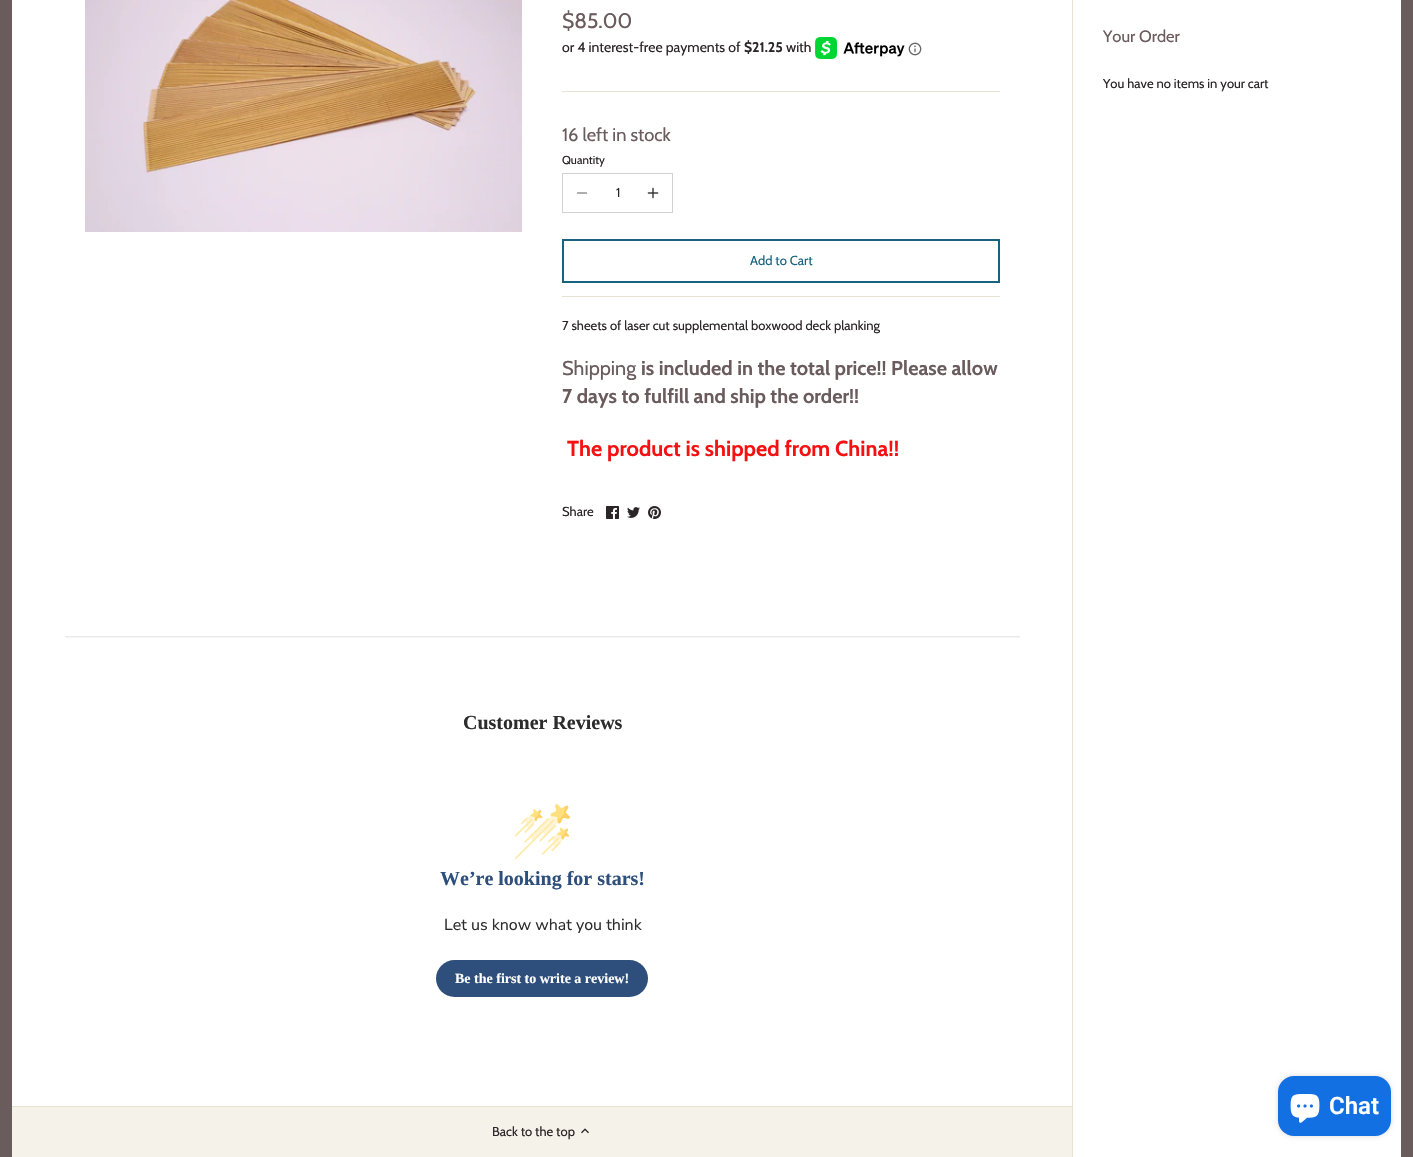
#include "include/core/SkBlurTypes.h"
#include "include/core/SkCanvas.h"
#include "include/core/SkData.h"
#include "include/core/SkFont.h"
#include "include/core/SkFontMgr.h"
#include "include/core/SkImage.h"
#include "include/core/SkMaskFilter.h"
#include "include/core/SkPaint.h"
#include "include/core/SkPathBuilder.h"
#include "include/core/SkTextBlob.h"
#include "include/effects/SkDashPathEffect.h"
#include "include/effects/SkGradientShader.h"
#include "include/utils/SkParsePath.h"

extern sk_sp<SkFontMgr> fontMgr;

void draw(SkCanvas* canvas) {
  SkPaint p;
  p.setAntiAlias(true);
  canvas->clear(SkColorSetRGB(244, 242, 233));
  p.setStyle(SkPaint::kStroke_Style);
  p.setStrokeWidth(12);
  p.setColor(SkColorSetRGB(106, 91, 92));
  canvas->drawRect(SkRect::MakeLTRB(6, -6, 1079, 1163), p);
  p.setStyle(SkPaint::kFill_Style);
  p.setColor(SK_ColorWHITE);
  canvas->drawRect(SkRect::MakeLTRB(12, 0, 1072, 1106), p);
  canvas->drawImageRect(SkImages::DeferredFromEncodedData(SkData::MakeFromFileName("images/1.png")), SkRect::MakeLTRB(85, 0, 522, 232), SkSamplingOptions());
  p.setColor(SkColorSetRGB(229, 226, 212));
  canvas->drawRect(SkRect::MakeLTRB(562, 91, 1000, 92), p);
  canvas->drawImageRect(SkImages::DeferredFromEncodedData(SkData::MakeFromFileName("images/2.png")), SkRect::MakeLTRB(815, 37, 905, 59), SkSamplingOptions());
  canvas->drawImageRect(SkImages::DeferredFromEncodedData(SkData::MakeFromFileName("images/3.png")), SkRect::MakeLTRB(908, 42, 922, 56), SkSamplingOptions());
  canvas->drawRect(SkRect::MakeLTRB(562, 296, 1000, 297), p);
  p.setStyle(SkPaint::kStroke_Style);
  p.setStrokeWidth(1);
  p.setColor(SkColorSetRGB(211, 209, 210));
  canvas->drawRect(SkRect::MakeLTRB(562.5f, 173.5f, 672.5f, 212.5f), p);
  p.setStrokeWidth(1.3f);
  p.setStrokeCap(SkPaint::kRound_Cap);
  p.setStrokeJoin(SkPaint::kRound_Join);
  p.setColor(SkColorSetRGB(150, 146, 148));
  canvas->drawPath(SkPathBuilder().moveTo(577.5f, 193).lineTo(586.5f, 193).detach(), p);
  canvas->drawImageRect(SkImages::DeferredFromEncodedData(SkData::MakeFromFileName("images/4.png")), SkRect::MakeLTRB(647, 187, 659, 199), SkSamplingOptions());
  p.setStrokeWidth(2);
  p.setStrokeCap(SkPaint::kButt_Cap);
  p.setStrokeJoin(SkPaint::kMiter_Join);
  p.setColor(SkColorSetRGB(24, 100, 128));
  canvas->drawRect(SkRect::MakeLTRB(563, 240, 999, 282), p);
  canvas->drawImageRect(SkImages::DeferredFromEncodedData(SkData::MakeFromFileName("images/5.png")), SkRect::MakeLTRB(606, 506, 619, 519), SkSamplingOptions());
  canvas->drawImageRect(SkImages::DeferredFromEncodedData(SkData::MakeFromFileName("images/6.png")), SkRect::MakeLTRB(627, 507, 640, 518), SkSamplingOptions());
  canvas->drawImageRect(SkImages::DeferredFromEncodedData(SkData::MakeFromFileName("images/7.png")), SkRect::MakeLTRB(648, 506, 661, 519), SkSamplingOptions());
  canvas->drawImageRect(SkImages::DeferredFromEncodedData(SkData::MakeFromFileName("images/8.png")), SkRect::MakeLTRB(65, 636, 1020, 638), SkSamplingOptions());
  canvas->drawImageRect(SkImages::DeferredFromEncodedData(SkData::MakeFromFileName("images/9.png")), SkRect::MakeLTRB(515, 804, 570, 859), SkSamplingOptions());
  p.setStyle(SkPaint::kFill_Style);
  p.setColor(SkColorSetRGB(46, 79, 124));
  canvas->drawRoundRect(SkRect::MakeLTRB(436, 960, 648, 997), 18.5f, 18.5f, p);
  p.setColor(SK_ColorWHITE);
  canvas->drawRect(SkRect::MakeLTRB(1073, 0, 1401, 1157), p);
  p.setColor(SkColorSetRGB(229, 226, 212));
  canvas->drawRect(SkRect::MakeLTRB(12, 1106, 1073, 1107), p);
  canvas->drawImageRect(SkImages::DeferredFromEncodedData(SkData::MakeFromFileName("images/10.png")), SkRect::MakeLTRB(581, 1128, 589, 1134), SkSamplingOptions());
  canvas->drawRect(SkRect::MakeLTRB(1072, 0, 1073, 1157), p);
  p.setColor(SkColorSetRGB(106, 91, 92));
  canvas->drawRect(SkRect::MakeLTRB(1401, 0, 1413, 1157), p);
  p.setColor(SkColorSetARGB(38, 0, 0, 0));
  p.setMaskFilter(SkMaskFilter::MakeBlur(kNormal_SkBlurStyle, 2.5f));
  canvas->drawRoundRect(SkRect::MakeLTRB(1278, 1076, 1391, 1136), 16, 16, p);
  p.setMaskFilter(nullptr);
  p.setColor(SkColorSetRGB(19, 112, 227));
  canvas->drawRoundRect(SkRect::MakeLTRB(1278, 1076, 1391, 1136), 16, 16, p);
  canvas->drawImageRect(SkImages::DeferredFromEncodedData(SkData::MakeFromFileName("images/11.png")), SkRect::MakeLTRB(1290, 1094, 1320, 1123), SkSamplingOptions());
  SkFont font1(fontMgr->matchFamilyStyle("Cabin", SkFontStyle::Normal()), 21);
  font1.setSubpixel(true);
  p.setColor(SkColorSetRGB(106, 91, 92));
  canvas->drawString("$85.00", 562, 28, font1, p);
  SkFont font2(fontMgr->matchFamilyStyle("Cabin", SkFontStyle::Normal()), 14);
  font2.setSubpixel(true);
  p.setColor(SkColorSetRGB(44, 37, 40));
  canvas->drawString("or 4 interest-free payments of", 562, 52, font2, p);
  SkFont font3(fontMgr->matchFamilyStyle("Cabin", SkFontStyle::Bold()), 14);
  font3.setSubpixel(true);
  canvas->drawString("$21.25", 744, 52, font3, p);
  canvas->drawString("with", 786, 52, font2, p);
  SkFont font4(fontMgr->matchFamilyStyle("Cabin", SkFontStyle::Normal()), 18.25f);
  font4.setSubpixel(true);
  p.setColor(SkColorSetRGB(106, 91, 92));
  canvas->drawString("16 left in stock", 562, 141, font4, p);
  SkFont font5(fontMgr->matchFamilyStyle("Cabin", SkFontStyle::Normal()), 11.5f);
  font5.setSubpixel(true);
  p.setColor(SkColorSetRGB(44, 37, 40));
  canvas->drawString("Quantity", 562, 164, font5, p);
  SkFont font6(fontMgr->matchFamilyStyle("Cabin", SkFontStyle::Normal()), 13);
  font6.setSubpixel(true);
  canvas->drawString("1", 616, 197, font6, p);
  p.setColor(SkColorSetRGB(24, 100, 128));
  canvas->drawString("Add to Cart", 750, 265, font6, p);
  p.setColor(SkColorSetRGB(44, 37, 40));
  canvas->drawString("7 sheets of laser cut supplemental boxwood deck planking", 562, 330, font6, p);
  SkFont font7(fontMgr->matchFamilyStyle("Cabin", SkFontStyle::Normal()), 19.9f);
  font7.setSubpixel(true);
  p.setColor(SkColorSetRGB(106, 91, 92));
  canvas->drawString("Shipping", 562, 375, font7, p);
  SkFont font8(fontMgr->matchFamilyStyle("Cabin", SkFontStyle::Bold()), 19.9f);
  font8.setSubpixel(true);
  canvas->drawString("is included in the total price!! Please allow", 641, 375, font8, p);
  canvas->drawString("7 days to fulfill and ship the order!!", 562, 403, font8, p);
  SkFont font9(fontMgr->matchFamilyStyle("Cabin", SkFontStyle::Bold()), 21.7f);
  font9.setSubpixel(true);
  p.setColor(SkColorSetRGB(245, 17, 17));
  canvas->drawString("The product is shipped from China!!", 567, 456, font9, p);
  p.setColor(SkColorSetRGB(44, 37, 40));
  canvas->drawString("Share", 562, 516, font6, p);
  SkFont font10(fontMgr->matchFamilyStyle("Liberation Serif", SkFontStyle::Bold()), 20);
  font10.setSubpixel(true);
  p.setColor(SkColorSetRGB(44, 44, 44));
  canvas->drawString("Customer Reviews", 463, 729, font10, p);
  p.setColor(SkColorSetRGB(46, 79, 124));
  canvas->drawString("We’re looking for stars!", 440, 885, font10, p);
  SkFont font11(fontMgr->matchFamilyStyle("Nunito Sans", SkFontStyle(200, SkFontStyle::kNormal_Width, SkFontStyle::kUpright_Slant)), 16);
  font11.setSubpixel(true);
  p.setColor(SkColorSetRGB(44, 44, 44));
  canvas->drawString("Let us know what you think", 444, 930, font11, p);
  SkFont font12(fontMgr->matchFamilyStyle("Liberation Serif", SkFontStyle::Bold()), 14);
  font12.setSubpixel(true);
  p.setColor(SK_ColorWHITE);
  canvas->drawString("Be the first to write a review!", 455, 983, font12, p);
  p.setColor(SkColorSetRGB(44, 37, 40));
  canvas->drawString("Back to the top", 492, 1136, font6, p);
  SkFont font13(fontMgr->matchFamilyStyle("Cabin", SkFontStyle::Normal()), 16.5f);
  font13.setSubpixel(true);
  p.setColor(SkColorSetRGB(106, 91, 92));
  canvas->drawString("Your Order", 1103, 42, font13, p);
  p.setColor(SkColorSetRGB(44, 37, 40));
  canvas->drawString("You have no items in your cart", 1103, 88, font6, p);
  SkFont font14(fontMgr->matchFamilyStyle("Roboto", SkFontStyle(600, SkFontStyle::kNormal_Width, SkFontStyle::kUpright_Slant)), 24);
  font14.setSubpixel(true);
  p.setColor(SK_ColorWHITE);
  canvas->drawString("Chat", 1329, 1114, font14, p);
}
